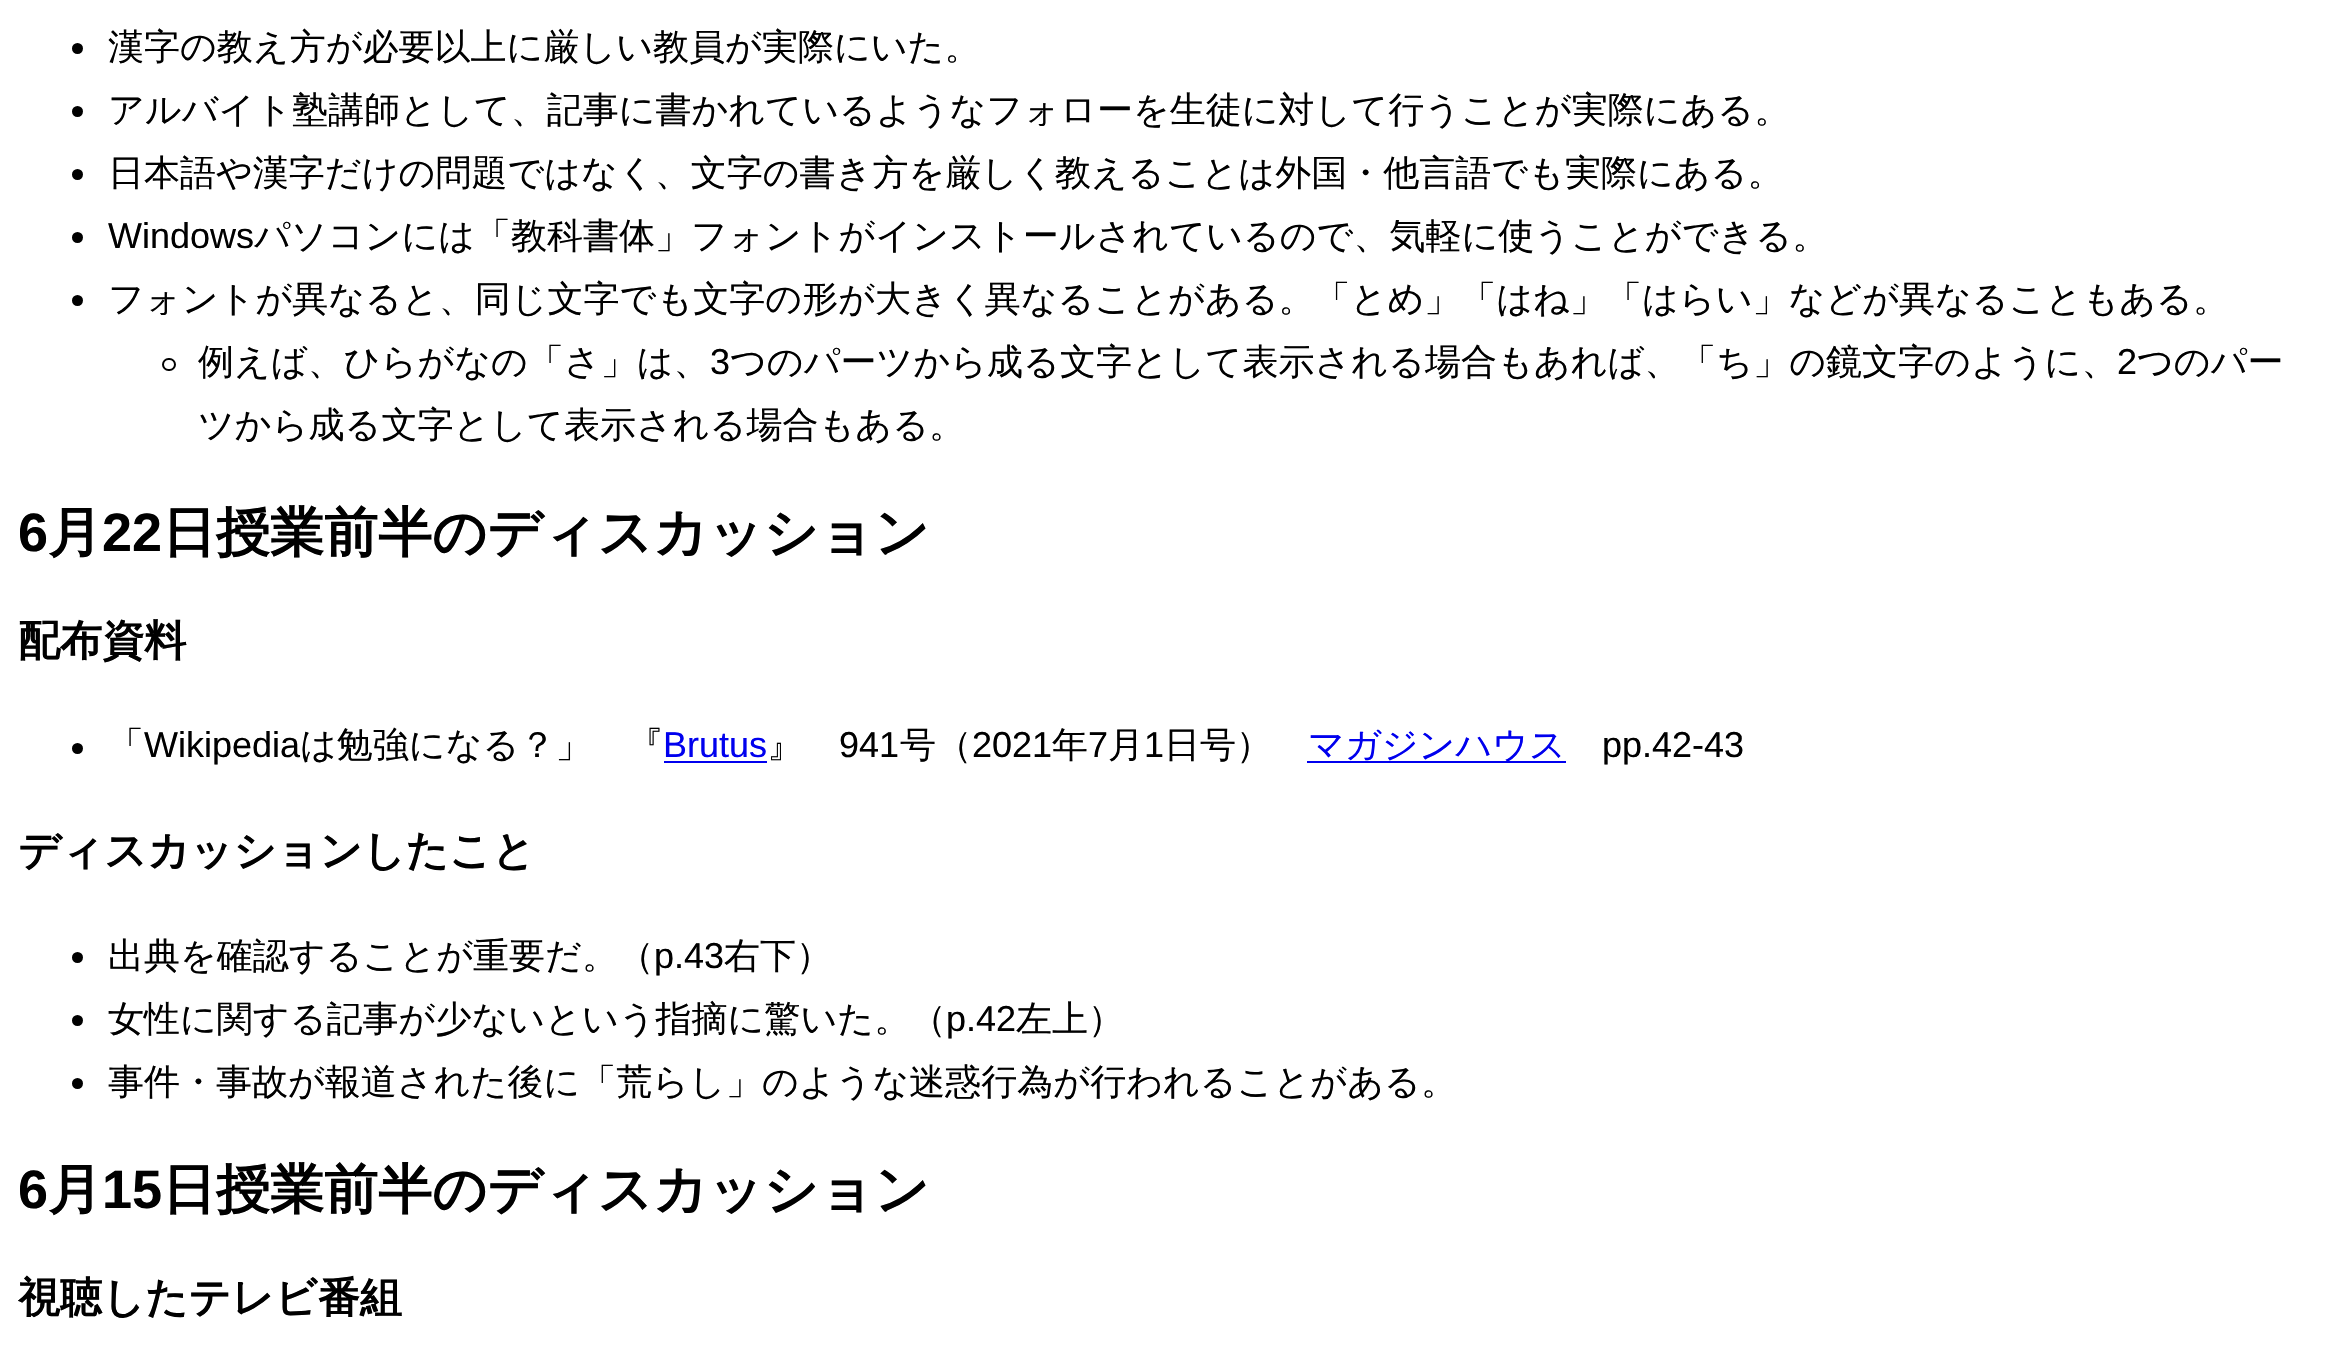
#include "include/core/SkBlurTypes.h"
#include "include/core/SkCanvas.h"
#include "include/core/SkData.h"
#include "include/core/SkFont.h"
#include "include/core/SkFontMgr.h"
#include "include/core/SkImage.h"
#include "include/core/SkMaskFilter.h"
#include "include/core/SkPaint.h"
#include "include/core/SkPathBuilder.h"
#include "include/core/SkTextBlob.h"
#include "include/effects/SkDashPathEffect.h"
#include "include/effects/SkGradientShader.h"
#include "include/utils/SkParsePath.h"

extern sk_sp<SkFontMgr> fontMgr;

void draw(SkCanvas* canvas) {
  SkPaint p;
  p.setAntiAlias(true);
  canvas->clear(SK_ColorWHITE);
  p.setColor(SK_ColorBLACK);
  canvas->drawCircle(77.5f, 48.5f, 5.5f, p);
  canvas->drawCircle(77.5f, 111.5f, 5.5f, p);
  canvas->drawCircle(77.5f, 174.5f, 5.5f, p);
  canvas->drawCircle(77.5f, 237.5f, 5.5f, p);
  canvas->drawCircle(77.5f, 300.5f, 5.5f, p);
  p.setStyle(SkPaint::kStroke_Style);
  p.setStrokeWidth(2);
  canvas->drawRoundRect(SkRect::MakeLTRB(163, 359, 175, 370), 5.5f, 5.5f, p);
  p.setStyle(SkPaint::kFill_Style);
  canvas->drawCircle(77.5f, 748.5f, 5.5f, p);
  p.setColor(SkColorSetRGB(0, 0, 238));
  canvas->drawRect(SkRect::MakeLTRB(664, 761, 767, 763), p);
  canvas->drawRect(SkRect::MakeLTRB(1307, 761, 1566, 763), p);
  p.setColor(SK_ColorBLACK);
  canvas->drawCircle(77.5f, 957.5f, 5.5f, p);
  canvas->drawCircle(77.5f, 1020.5f, 5.5f, p);
  canvas->drawCircle(77.5f, 1083.5f, 5.5f, p);
  SkFont font1(fontMgr->matchFamilyStyle("WenQuanYi Zen Hei", SkFontStyle(500, SkFontStyle::kNormal_Width, SkFontStyle::kUpright_Slant)), 36);
  font1.setSubpixel(true);
  canvas->drawString("漢字の教え方が必要以上に厳しい教員が実際にいた。", 108, 59, font1, p);
  canvas->drawString("アルバイト塾講師として、記事に書かれているようなフォローを生徒に対して行うことが実際にある。", 108, 122, font1, p);
  canvas->drawString("日本語や漢字だけの問題ではなく、文字の書き方を厳しく教えることは外国・他言語でも実際にある。", 108, 185, font1, p);
  SkFont font2(fontMgr->matchFamilyStyle("Liberation Sans", SkFontStyle::Normal()), 36);
  font2.setSubpixel(true);
  canvas->drawString("Windows", 108, 248, font2, p);
  canvas->drawString("パソコンには「教科書体」フォントがインストールされているので、気軽に使うことができる。", 254, 248, font1, p);
  canvas->drawString("フォントが異なると、同じ文字でも文字の形が大きく異なることがある。「とめ」「はね」「はらい」などが異なることもある。", 108, 311, font1, p);
  canvas->drawString("例えば、ひらがなの「さ」は、", 198, 374, font1, p);
  canvas->drawString("3", 710, 374, font2, p);
  canvas->drawString("つのパーツから成る文字として表示される場合もあれば、「ち」の鏡文字のように、", 730, 374, font1, p);
  canvas->drawString("2", 2117, 374, font2, p);
  canvas->drawString("つのパー", 2137, 374, font1, p);
  canvas->drawString("ツから成る文字として表示される場合もある。", 198, 437, font1, p);
  SkFont font3(fontMgr->matchFamilyStyle("Liberation Sans", SkFontStyle::Bold()), 54);
  font3.setSubpixel(true);
  canvas->drawString("6", 18, 551, font3, p);
  SkFont font4(fontMgr->matchFamilyStyle("WenQuanYi Zen Hei", SkFontStyle::Bold()), 54);
  font4.setSubpixel(true);
  canvas->drawString("月", 48, 551, font4, p);
  canvas->drawString("22", 102, 551, font3, p);
  canvas->drawString("日授業前半のディスカッション", 162, 551, font4, p);
  SkFont font5(fontMgr->matchFamilyStyle("WenQuanYi Zen Hei", SkFontStyle::Bold()), 42.1f);
  font5.setSubpixel(true);
  canvas->drawString("配布資料", 18, 655, font5, p);
  canvas->drawString("「", 108, 757, font1, p);
  canvas->drawString("Wikipedia", 144, 757, font2, p);
  canvas->drawString("は勉強になる？」　『", 300, 757, font1, p);
  p.setColor(SkColorSetRGB(0, 0, 238));
  canvas->drawString("Brutus", 663, 757, font2, p);
  p.setColor(SK_ColorBLACK);
  canvas->drawString("』", 767, 757, font1, p);
  canvas->drawString("941", 839, 757, font2, p);
  canvas->drawString("号（", 900, 757, font1, p);
  canvas->drawString("2021", 972, 757, font2, p);
  canvas->drawString("年", 1052, 757, font1, p);
  canvas->drawString("7", 1088, 757, font2, p);
  canvas->drawString("月", 1108, 757, font1, p);
  canvas->drawString("1", 1144, 757, font2, p);
  canvas->drawString("日号）", 1164, 757, font1, p);
  p.setColor(SkColorSetRGB(0, 0, 238));
  canvas->drawString("マガジンハウス", 1308, 757, font1, p);
  p.setColor(SK_ColorBLACK);
  canvas->drawString("pp.42-43", 1602, 757, font2, p);
  canvas->drawString("ディスカッションしたこと", 18, 865, font5, p);
  canvas->drawString("出典を確認することが重要だ。（", 108, 968, font1, p);
  canvas->drawString("p.43", 654, 968, font2, p);
  canvas->drawString("右下）", 724, 968, font1, p);
  canvas->drawString("女性に関する記事が少ないという指摘に驚いた。（", 108, 1031, font1, p);
  canvas->drawString("p.42", 946, 1031, font2, p);
  canvas->drawString("左上）", 1016, 1031, font1, p);
  canvas->drawString("事件・事故が報道された後に「荒らし」のような迷惑行為が行われることがある。", 108, 1094, font1, p);
  canvas->drawString("6", 18, 1208, font3, p);
  canvas->drawString("月", 48, 1208, font4, p);
  canvas->drawString("15", 102, 1208, font3, p);
  canvas->drawString("日授業前半のディスカッション", 162, 1208, font4, p);
  canvas->drawString("視聴したテレビ番組", 18, 1312, font5, p);
}
